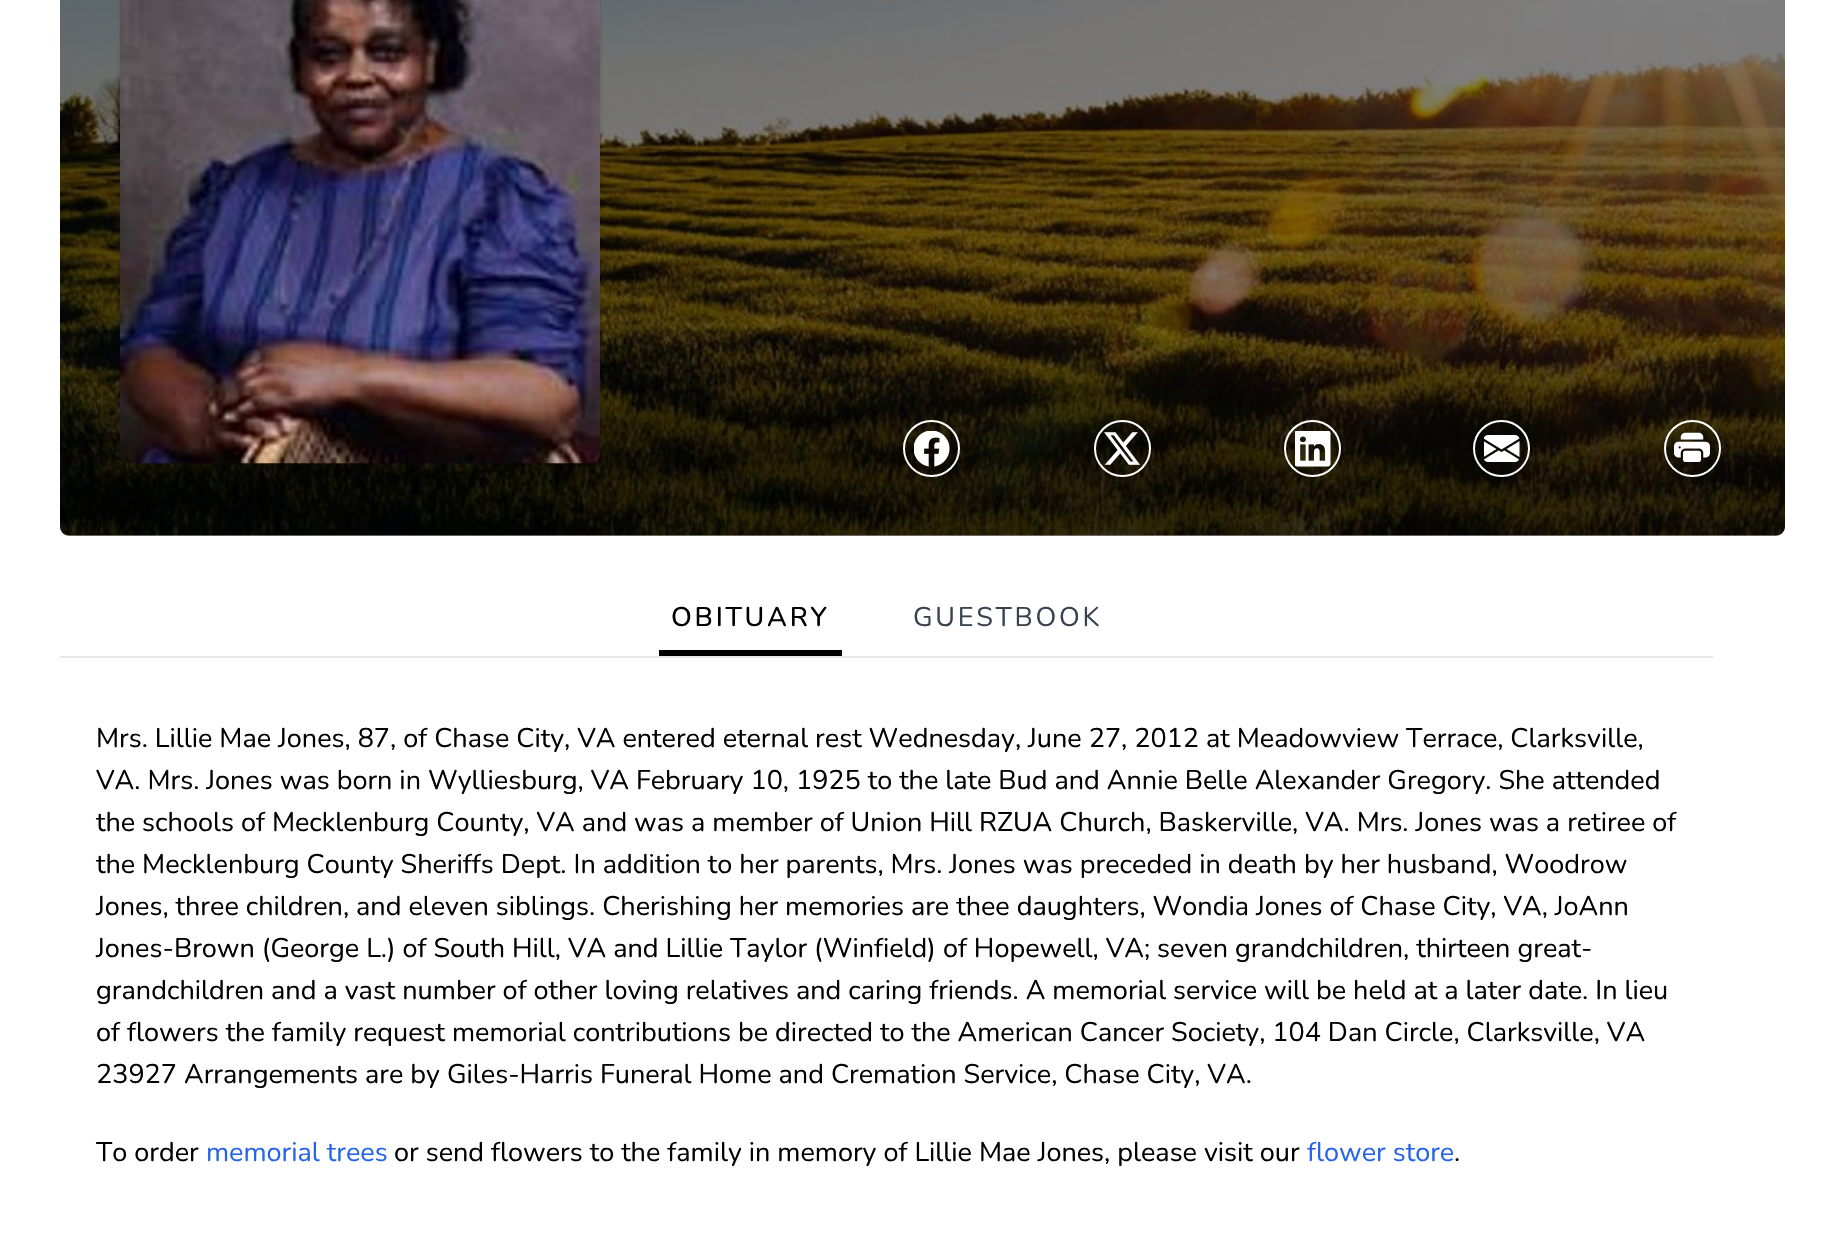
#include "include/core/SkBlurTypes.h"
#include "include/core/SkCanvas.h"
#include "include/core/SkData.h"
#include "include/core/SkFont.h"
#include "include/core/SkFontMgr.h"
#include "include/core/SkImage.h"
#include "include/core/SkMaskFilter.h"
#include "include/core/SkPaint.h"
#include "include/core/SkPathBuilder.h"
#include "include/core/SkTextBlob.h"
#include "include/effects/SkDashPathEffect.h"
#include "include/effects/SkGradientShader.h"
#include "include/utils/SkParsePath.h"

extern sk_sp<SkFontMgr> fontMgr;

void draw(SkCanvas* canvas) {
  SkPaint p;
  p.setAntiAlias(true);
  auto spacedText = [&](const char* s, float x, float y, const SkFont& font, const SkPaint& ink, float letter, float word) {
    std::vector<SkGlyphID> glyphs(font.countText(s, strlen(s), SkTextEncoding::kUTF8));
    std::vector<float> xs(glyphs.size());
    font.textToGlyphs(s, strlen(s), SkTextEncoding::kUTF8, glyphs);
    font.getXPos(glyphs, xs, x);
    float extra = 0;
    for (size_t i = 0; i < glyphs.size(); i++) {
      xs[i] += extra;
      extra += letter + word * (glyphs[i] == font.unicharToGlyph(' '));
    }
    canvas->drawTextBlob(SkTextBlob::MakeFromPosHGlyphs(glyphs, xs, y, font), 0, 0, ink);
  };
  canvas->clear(SK_ColorWHITE);
  canvas->drawImageRect(SkImages::DeferredFromEncodedData(SkData::MakeFromFileName("images/1.png")), SkRect::MakeLTRB(60, 0, 1785, 536), SkSamplingOptions());
  p.setColor(SkColorSetARGB(128, 0, 0, 0));
  canvas->drawRoundRect(SkRect::MakeLTRB(60, -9, 1785, 536), 9, 9, p);
  canvas->drawImageRect(SkImages::DeferredFromEncodedData(SkData::MakeFromFileName("images/2.png")), SkRect::MakeLTRB(118, 0, 602, 465), SkSamplingOptions());
  p.setStyle(SkPaint::kStroke_Style);
  p.setStrokeWidth(2);
  p.setColor(SK_ColorWHITE);
  canvas->drawCircle(931.5f, 448.5f, 27.5f, p);
  canvas->drawImageRect(SkImages::DeferredFromEncodedData(SkData::MakeFromFileName("images/3.png")), SkRect::MakeLTRB(914, 431, 950, 467), SkSamplingOptions());
  canvas->drawCircle(1122.5f, 448.5f, 27.5f, p);
  canvas->drawImageRect(SkImages::DeferredFromEncodedData(SkData::MakeFromFileName("images/4.png")), SkRect::MakeLTRB(1104, 432, 1140, 465), SkSamplingOptions());
  canvas->drawCircle(1312.5f, 448.5f, 27.5f, p);
  canvas->drawImageRect(SkImages::DeferredFromEncodedData(SkData::MakeFromFileName("images/5.png")), SkRect::MakeLTRB(1295, 431, 1331, 467), SkSamplingOptions());
  canvas->drawCircle(1501.5f, 448.5f, 27.5f, p);
  canvas->drawImageRect(SkImages::DeferredFromEncodedData(SkData::MakeFromFileName("images/6.png")), SkRect::MakeLTRB(1484, 435, 1520, 462), SkSamplingOptions());
  canvas->drawCircle(1692.5f, 448.5f, 27.5f, p);
  canvas->drawImageRect(SkImages::DeferredFromEncodedData(SkData::MakeFromFileName("images/7.png")), SkRect::MakeLTRB(1674, 432, 1710, 462), SkSamplingOptions());
  p.setStyle(SkPaint::kFill_Style);
  p.setColor(SkColorSetRGB(229, 231, 235));
  canvas->drawRect(SkRect::MakeLTRB(60, 656, 1713, 658), p);
  p.setColor(SK_ColorBLACK);
  canvas->drawRect(SkRect::MakeLTRB(659, 650, 842, 656), p);
  SkFont font1(fontMgr->matchFamilyStyle("Nunito", SkFontStyle(500, SkFontStyle::kNormal_Width, SkFontStyle::kUpright_Slant)), 27);
  font1.setSubpixel(true);
  spacedText("OBITUARY", 671, 626, font1, p, 2.75f, 0);
  SkFont font2(fontMgr->matchFamilyStyle("Nunito", SkFontStyle::Normal()), 27);
  font2.setSubpixel(true);
  p.setColor(SkColorSetRGB(55, 65, 81));
  spacedText("GUESTBOOK", 913, 626, font2, p, 2.75f, 0);
  p.setColor(SK_ColorBLACK);
  canvas->drawString("Mrs. Lillie Mae Jones, 87, of Chase City, VA entered eternal rest Wednesday, June 27, 2012 at Meadowview Terrace, Clarksville,", 96, 747, font2, p);
  canvas->drawString("VA. Mrs. Jones was born in Wylliesburg, VA February 10, 1925 to the late Bud and Annie Belle Alexander Gregory. She attended", 96, 789, font2, p);
  canvas->drawString("the schools of Mecklenburg County, VA and was a member of Union Hill RZUA Church, Baskerville, VA. Mrs. Jones was a retiree of", 96, 831, font2, p);
  canvas->drawString("the Mecklenburg County Sheriffs Dept. In addition to her parents, Mrs. Jones was preceded in death by her husband, Woodrow", 96, 873, font2, p);
  canvas->drawString("Jones, three children, and eleven siblings. Cherishing her memories are thee daughters, Wondia Jones of Chase City, VA, JoAnn", 96, 915, font2, p);
  canvas->drawString("Jones-Brown (George L.) of South Hill, VA and Lillie Taylor (Winfield) of Hopewell, VA; seven grandchildren, thirteen great-", 96, 957, font2, p);
  canvas->drawString("grandchildren and a vast number of other loving relatives and caring friends. A memorial service will be held at a later date. In lieu", 96, 999, font2, p);
  canvas->drawString("of flowers the family request memorial contributions be directed to the American Cancer Society, 104 Dan Circle, Clarksville, VA", 96, 1041, font2, p);
  canvas->drawString("23927 Arrangements are by Giles-Harris Funeral Home and Cremation Service, Chase City, VA.", 96, 1083, font2, p);
  canvas->drawString("To order", 96, 1161, font2, p);
  p.setColor(SkColorSetRGB(37, 99, 235));
  canvas->drawString("memorial trees", 206, 1161, font2, p);
  p.setColor(SK_ColorBLACK);
  canvas->drawString("or send flowers to the family in memory of Lillie Mae Jones, please visit our", 394, 1161, font2, p);
  p.setColor(SkColorSetRGB(37, 99, 235));
  canvas->drawString("flower store", 1307, 1161, font2, p);
  p.setColor(SK_ColorBLACK);
  canvas->drawString(".", 1454, 1161, font2, p);
}
